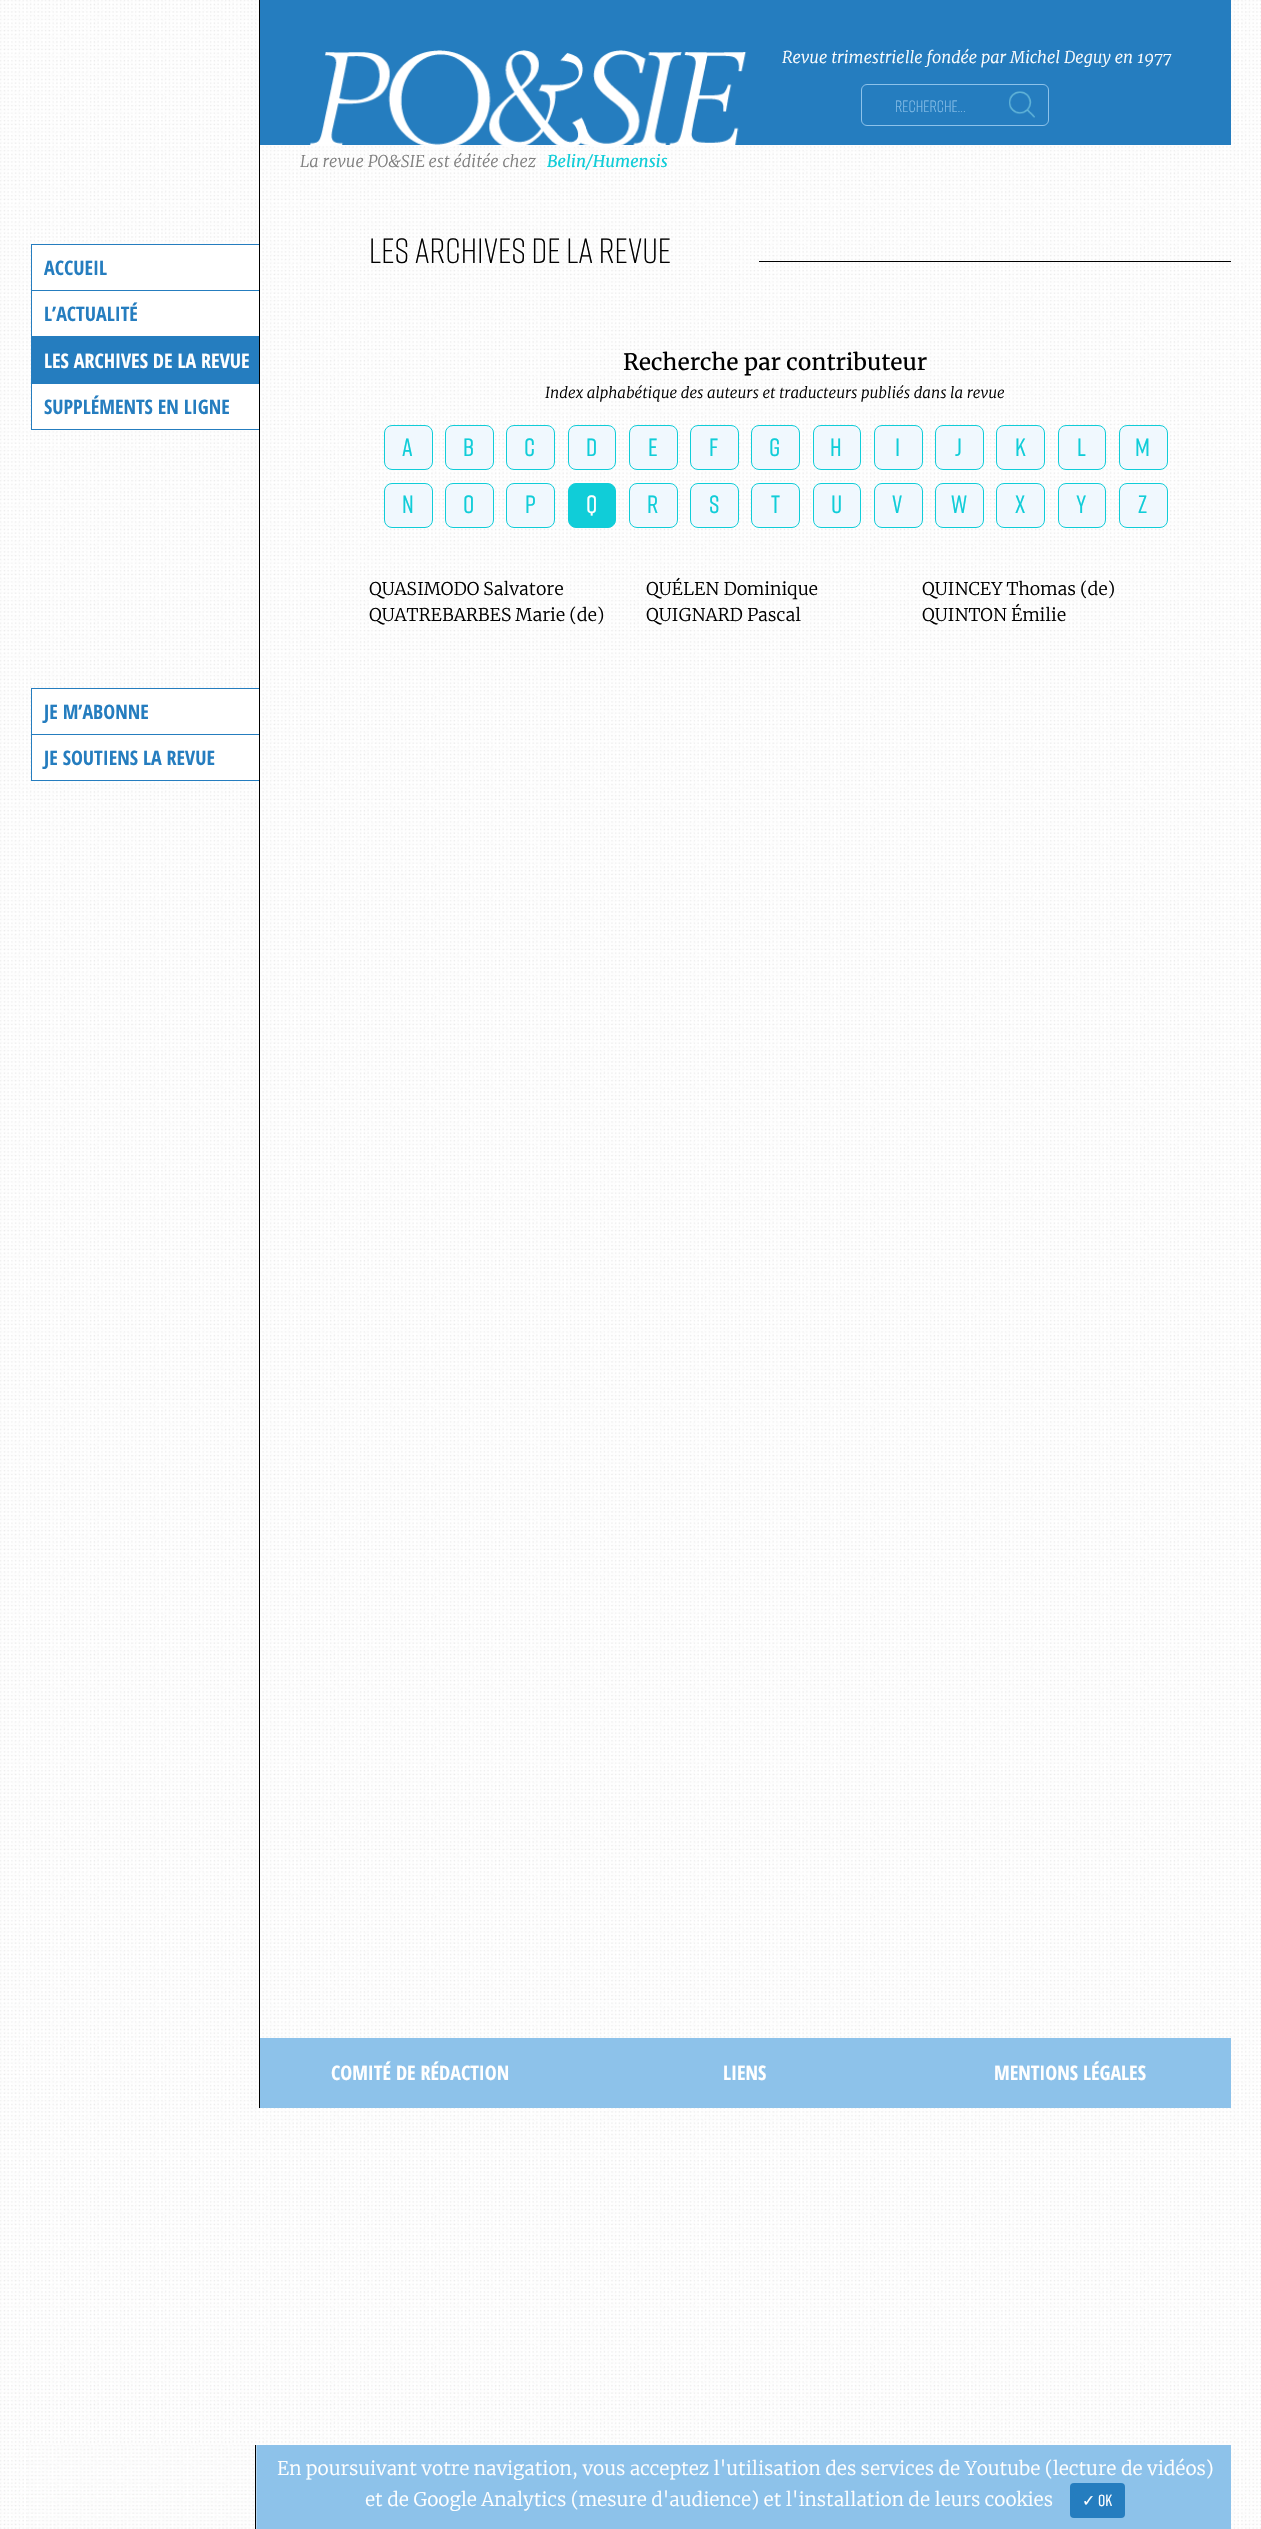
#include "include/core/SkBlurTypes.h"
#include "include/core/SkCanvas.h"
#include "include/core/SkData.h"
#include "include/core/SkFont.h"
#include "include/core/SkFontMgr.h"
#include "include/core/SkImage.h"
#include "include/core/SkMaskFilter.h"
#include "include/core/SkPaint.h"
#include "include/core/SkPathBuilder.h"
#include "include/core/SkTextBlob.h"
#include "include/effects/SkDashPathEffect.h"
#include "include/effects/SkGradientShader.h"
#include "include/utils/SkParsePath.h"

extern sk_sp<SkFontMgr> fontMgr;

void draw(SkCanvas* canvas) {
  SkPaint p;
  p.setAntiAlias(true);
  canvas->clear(SK_ColorWHITE);
  canvas->drawImageRect(SkImages::DeferredFromEncodedData(SkData::MakeFromFileName("images/1.png")), SkRect::MakeLTRB(0, 0, 1261, 2529), SkSamplingOptions());
  p.setColor(SkColorSetRGB(37, 125, 191));
  canvas->drawRect(SkRect::MakeLTRB(260, 0, 1231, 145), p);
  canvas->drawImageRect(SkImages::DeferredFromEncodedData(SkData::MakeFromFileName("images/2.png")), SkRect::MakeLTRB(310, 50, 747, 148), SkSamplingOptions());
  p.setStyle(SkPaint::kStroke_Style);
  p.setStrokeWidth(1);
  p.setColor(SkColorSetRGB(141, 194, 234));
  canvas->drawRoundRect(SkRect::MakeLTRB(861.5f, 84.5f, 1048.5f, 125.5f), 5.5f, 5.5f, p);
  canvas->drawImageRect(SkImages::DeferredFromEncodedData(SkData::MakeFromFileName("images/3.png")), SkRect::MakeLTRB(1009, 91, 1035, 118), SkSamplingOptions());
  p.setStyle(SkPaint::kFill_Style);
  p.setColor(SK_ColorBLACK);
  canvas->drawRect(SkRect::MakeLTRB(259, 0, 260, 2108), p);
  p.setColor(SK_ColorWHITE);
  canvas->drawRect(SkRect::MakeLTRB(32, 245, 259, 290), p);
  p.setColor(SkColorSetRGB(37, 125, 191));
  canvas->drawRect(SkRect::MakeLTRB(31, 244, 259, 245), p);
  canvas->drawRect(SkRect::MakeLTRB(31, 244, 32, 290), p);
  p.setColor(SK_ColorWHITE);
  canvas->drawRect(SkRect::MakeLTRB(32, 291, 259, 336), p);
  p.setColor(SkColorSetRGB(37, 125, 191));
  canvas->drawRect(SkRect::MakeLTRB(31, 290, 259, 291), p);
  canvas->drawRect(SkRect::MakeLTRB(31, 290, 32, 336), p);
  canvas->drawRect(SkRect::MakeLTRB(31, 336, 259, 384), p);
  p.setColor(SK_ColorWHITE);
  canvas->drawRect(SkRect::MakeLTRB(32, 384, 259, 429), p);
  p.setColor(SkColorSetRGB(37, 125, 191));
  canvas->drawRect(SkRect::MakeLTRB(31, 429, 259, 430), p);
  canvas->drawRect(SkRect::MakeLTRB(31, 383, 32, 430), p);
  p.setColor(SK_ColorWHITE);
  canvas->drawRect(SkRect::MakeLTRB(32, 689, 259, 734), p);
  p.setColor(SkColorSetRGB(37, 125, 191));
  canvas->drawRect(SkRect::MakeLTRB(31, 688, 259, 689), p);
  canvas->drawRect(SkRect::MakeLTRB(31, 688, 32, 734), p);
  p.setColor(SK_ColorWHITE);
  canvas->drawRect(SkRect::MakeLTRB(32, 735, 259, 780), p);
  p.setColor(SkColorSetRGB(37, 125, 191));
  canvas->drawRect(SkRect::MakeLTRB(31, 734, 259, 735), p);
  canvas->drawRect(SkRect::MakeLTRB(31, 780, 259, 781), p);
  canvas->drawRect(SkRect::MakeLTRB(31, 734, 32, 781), p);
  p.setColor(SK_ColorBLACK);
  canvas->drawRect(SkRect::MakeLTRB(759, 261, 1231, 262), p);
  p.setColor(SkColorSetRGB(240, 248, 254));
  canvas->drawRoundRect(SkRect::MakeLTRB(384.5f, 425.5f, 432.5f, 469.5f), 7.5f, 7.5f, p);
  p.setStyle(SkPaint::kStroke_Style);
  p.setColor(SkColorSetRGB(16, 205, 216));
  canvas->drawRoundRect(SkRect::MakeLTRB(384.5f, 425.5f, 432.5f, 469.5f), 7.5f, 7.5f, p);
  p.setStyle(SkPaint::kFill_Style);
  p.setColor(SkColorSetRGB(240, 248, 254));
  canvas->drawRoundRect(SkRect::MakeLTRB(445.5f, 425.5f, 493.5f, 469.5f), 7.5f, 7.5f, p);
  p.setStyle(SkPaint::kStroke_Style);
  p.setColor(SkColorSetRGB(16, 205, 216));
  canvas->drawRoundRect(SkRect::MakeLTRB(445.5f, 425.5f, 493.5f, 469.5f), 7.5f, 7.5f, p);
  p.setStyle(SkPaint::kFill_Style);
  p.setColor(SkColorSetRGB(240, 248, 254));
  canvas->drawRoundRect(SkRect::MakeLTRB(506.5f, 425.5f, 554.5f, 469.5f), 7.5f, 7.5f, p);
  p.setStyle(SkPaint::kStroke_Style);
  p.setColor(SkColorSetRGB(16, 205, 216));
  canvas->drawRoundRect(SkRect::MakeLTRB(506.5f, 425.5f, 554.5f, 469.5f), 7.5f, 7.5f, p);
  p.setStyle(SkPaint::kFill_Style);
  p.setColor(SkColorSetRGB(240, 248, 254));
  canvas->drawRoundRect(SkRect::MakeLTRB(568.5f, 425.5f, 615.5f, 469.5f), 7.5f, 7.5f, p);
  p.setStyle(SkPaint::kStroke_Style);
  p.setColor(SkColorSetRGB(16, 205, 216));
  canvas->drawRoundRect(SkRect::MakeLTRB(568.5f, 425.5f, 615.5f, 469.5f), 7.5f, 7.5f, p);
  p.setStyle(SkPaint::kFill_Style);
  p.setColor(SkColorSetRGB(240, 248, 254));
  canvas->drawRoundRect(SkRect::MakeLTRB(629.5f, 425.5f, 677.5f, 469.5f), 7.5f, 7.5f, p);
  p.setStyle(SkPaint::kStroke_Style);
  p.setColor(SkColorSetRGB(16, 205, 216));
  canvas->drawRoundRect(SkRect::MakeLTRB(629.5f, 425.5f, 677.5f, 469.5f), 7.5f, 7.5f, p);
  p.setStyle(SkPaint::kFill_Style);
  p.setColor(SkColorSetRGB(240, 248, 254));
  canvas->drawRoundRect(SkRect::MakeLTRB(690.5f, 425.5f, 738.5f, 469.5f), 7.5f, 7.5f, p);
  p.setStyle(SkPaint::kStroke_Style);
  p.setColor(SkColorSetRGB(16, 205, 216));
  canvas->drawRoundRect(SkRect::MakeLTRB(690.5f, 425.5f, 738.5f, 469.5f), 7.5f, 7.5f, p);
  p.setStyle(SkPaint::kFill_Style);
  p.setColor(SkColorSetRGB(240, 248, 254));
  canvas->drawRoundRect(SkRect::MakeLTRB(751.5f, 425.5f, 799.5f, 469.5f), 7.5f, 7.5f, p);
  p.setStyle(SkPaint::kStroke_Style);
  p.setColor(SkColorSetRGB(16, 205, 216));
  canvas->drawRoundRect(SkRect::MakeLTRB(751.5f, 425.5f, 799.5f, 469.5f), 7.5f, 7.5f, p);
  p.setStyle(SkPaint::kFill_Style);
  p.setColor(SkColorSetRGB(240, 248, 254));
  canvas->drawRoundRect(SkRect::MakeLTRB(813.5f, 425.5f, 860.5f, 469.5f), 7.5f, 7.5f, p);
  p.setStyle(SkPaint::kStroke_Style);
  p.setColor(SkColorSetRGB(16, 205, 216));
  canvas->drawRoundRect(SkRect::MakeLTRB(813.5f, 425.5f, 860.5f, 469.5f), 7.5f, 7.5f, p);
  p.setStyle(SkPaint::kFill_Style);
  p.setColor(SkColorSetRGB(240, 248, 254));
  canvas->drawRoundRect(SkRect::MakeLTRB(874.5f, 425.5f, 922.5f, 469.5f), 7.5f, 7.5f, p);
  p.setStyle(SkPaint::kStroke_Style);
  p.setColor(SkColorSetRGB(16, 205, 216));
  canvas->drawRoundRect(SkRect::MakeLTRB(874.5f, 425.5f, 922.5f, 469.5f), 7.5f, 7.5f, p);
  p.setStyle(SkPaint::kFill_Style);
  p.setColor(SkColorSetRGB(240, 248, 254));
  canvas->drawRoundRect(SkRect::MakeLTRB(935.5f, 425.5f, 983.5f, 469.5f), 7.5f, 7.5f, p);
  p.setStyle(SkPaint::kStroke_Style);
  p.setColor(SkColorSetRGB(16, 205, 216));
  canvas->drawRoundRect(SkRect::MakeLTRB(935.5f, 425.5f, 983.5f, 469.5f), 7.5f, 7.5f, p);
  p.setStyle(SkPaint::kFill_Style);
  p.setColor(SkColorSetRGB(240, 248, 254));
  canvas->drawRoundRect(SkRect::MakeLTRB(996.5f, 425.5f, 1044.5f, 469.5f), 7.5f, 7.5f, p);
  p.setStyle(SkPaint::kStroke_Style);
  p.setColor(SkColorSetRGB(16, 205, 216));
  canvas->drawRoundRect(SkRect::MakeLTRB(996.5f, 425.5f, 1044.5f, 469.5f), 7.5f, 7.5f, p);
  p.setStyle(SkPaint::kFill_Style);
  p.setColor(SkColorSetRGB(240, 248, 254));
  canvas->drawRoundRect(SkRect::MakeLTRB(1058.5f, 425.5f, 1105.5f, 469.5f), 7.5f, 7.5f, p);
  p.setStyle(SkPaint::kStroke_Style);
  p.setColor(SkColorSetRGB(16, 205, 216));
  canvas->drawRoundRect(SkRect::MakeLTRB(1058.5f, 425.5f, 1105.5f, 469.5f), 7.5f, 7.5f, p);
  p.setStyle(SkPaint::kFill_Style);
  p.setColor(SkColorSetRGB(240, 248, 254));
  canvas->drawRoundRect(SkRect::MakeLTRB(1119.5f, 425.5f, 1167.5f, 469.5f), 7.5f, 7.5f, p);
  p.setStyle(SkPaint::kStroke_Style);
  p.setColor(SkColorSetRGB(16, 205, 216));
  canvas->drawRoundRect(SkRect::MakeLTRB(1119.5f, 425.5f, 1167.5f, 469.5f), 7.5f, 7.5f, p);
  p.setStyle(SkPaint::kFill_Style);
  p.setColor(SkColorSetRGB(240, 248, 254));
  canvas->drawRoundRect(SkRect::MakeLTRB(384.5f, 483.5f, 432.5f, 527.5f), 7.5f, 7.5f, p);
  p.setStyle(SkPaint::kStroke_Style);
  p.setColor(SkColorSetRGB(16, 205, 216));
  canvas->drawRoundRect(SkRect::MakeLTRB(384.5f, 483.5f, 432.5f, 527.5f), 7.5f, 7.5f, p);
  p.setStyle(SkPaint::kFill_Style);
  p.setColor(SkColorSetRGB(240, 248, 254));
  canvas->drawRoundRect(SkRect::MakeLTRB(445.5f, 483.5f, 493.5f, 527.5f), 7.5f, 7.5f, p);
  p.setStyle(SkPaint::kStroke_Style);
  p.setColor(SkColorSetRGB(16, 205, 216));
  canvas->drawRoundRect(SkRect::MakeLTRB(445.5f, 483.5f, 493.5f, 527.5f), 7.5f, 7.5f, p);
  p.setStyle(SkPaint::kFill_Style);
  p.setColor(SkColorSetRGB(240, 248, 254));
  canvas->drawRoundRect(SkRect::MakeLTRB(506.5f, 483.5f, 554.5f, 527.5f), 7.5f, 7.5f, p);
  p.setStyle(SkPaint::kStroke_Style);
  p.setColor(SkColorSetRGB(16, 205, 216));
  canvas->drawRoundRect(SkRect::MakeLTRB(506.5f, 483.5f, 554.5f, 527.5f), 7.5f, 7.5f, p);
  p.setStyle(SkPaint::kFill_Style);
  canvas->drawRoundRect(SkRect::MakeLTRB(568.5f, 483.5f, 615.5f, 527.5f), 7.5f, 7.5f, p);
  p.setStyle(SkPaint::kStroke_Style);
  canvas->drawRoundRect(SkRect::MakeLTRB(568.5f, 483.5f, 615.5f, 527.5f), 7.5f, 7.5f, p);
  p.setStyle(SkPaint::kFill_Style);
  p.setColor(SkColorSetRGB(240, 248, 254));
  canvas->drawRoundRect(SkRect::MakeLTRB(629.5f, 483.5f, 677.5f, 527.5f), 7.5f, 7.5f, p);
  p.setStyle(SkPaint::kStroke_Style);
  p.setColor(SkColorSetRGB(16, 205, 216));
  canvas->drawRoundRect(SkRect::MakeLTRB(629.5f, 483.5f, 677.5f, 527.5f), 7.5f, 7.5f, p);
  p.setStyle(SkPaint::kFill_Style);
  p.setColor(SkColorSetRGB(240, 248, 254));
  canvas->drawRoundRect(SkRect::MakeLTRB(690.5f, 483.5f, 738.5f, 527.5f), 7.5f, 7.5f, p);
  p.setStyle(SkPaint::kStroke_Style);
  p.setColor(SkColorSetRGB(16, 205, 216));
  canvas->drawRoundRect(SkRect::MakeLTRB(690.5f, 483.5f, 738.5f, 527.5f), 7.5f, 7.5f, p);
  p.setStyle(SkPaint::kFill_Style);
  p.setColor(SkColorSetRGB(240, 248, 254));
  canvas->drawRoundRect(SkRect::MakeLTRB(751.5f, 483.5f, 799.5f, 527.5f), 7.5f, 7.5f, p);
  p.setStyle(SkPaint::kStroke_Style);
  p.setColor(SkColorSetRGB(16, 205, 216));
  canvas->drawRoundRect(SkRect::MakeLTRB(751.5f, 483.5f, 799.5f, 527.5f), 7.5f, 7.5f, p);
  p.setStyle(SkPaint::kFill_Style);
  p.setColor(SkColorSetRGB(240, 248, 254));
  canvas->drawRoundRect(SkRect::MakeLTRB(813.5f, 483.5f, 860.5f, 527.5f), 7.5f, 7.5f, p);
  p.setStyle(SkPaint::kStroke_Style);
  p.setColor(SkColorSetRGB(16, 205, 216));
  canvas->drawRoundRect(SkRect::MakeLTRB(813.5f, 483.5f, 860.5f, 527.5f), 7.5f, 7.5f, p);
  p.setStyle(SkPaint::kFill_Style);
  p.setColor(SkColorSetRGB(240, 248, 254));
  canvas->drawRoundRect(SkRect::MakeLTRB(874.5f, 483.5f, 922.5f, 527.5f), 7.5f, 7.5f, p);
  p.setStyle(SkPaint::kStroke_Style);
  p.setColor(SkColorSetRGB(16, 205, 216));
  canvas->drawRoundRect(SkRect::MakeLTRB(874.5f, 483.5f, 922.5f, 527.5f), 7.5f, 7.5f, p);
  p.setStyle(SkPaint::kFill_Style);
  p.setColor(SkColorSetRGB(240, 248, 254));
  canvas->drawRoundRect(SkRect::MakeLTRB(935.5f, 483.5f, 983.5f, 527.5f), 7.5f, 7.5f, p);
  p.setStyle(SkPaint::kStroke_Style);
  p.setColor(SkColorSetRGB(16, 205, 216));
  canvas->drawRoundRect(SkRect::MakeLTRB(935.5f, 483.5f, 983.5f, 527.5f), 7.5f, 7.5f, p);
  p.setStyle(SkPaint::kFill_Style);
  p.setColor(SkColorSetRGB(240, 248, 254));
  canvas->drawRoundRect(SkRect::MakeLTRB(996.5f, 483.5f, 1044.5f, 527.5f), 7.5f, 7.5f, p);
  p.setStyle(SkPaint::kStroke_Style);
  p.setColor(SkColorSetRGB(16, 205, 216));
  canvas->drawRoundRect(SkRect::MakeLTRB(996.5f, 483.5f, 1044.5f, 527.5f), 7.5f, 7.5f, p);
  p.setStyle(SkPaint::kFill_Style);
  p.setColor(SkColorSetRGB(240, 248, 254));
  canvas->drawRoundRect(SkRect::MakeLTRB(1058.5f, 483.5f, 1105.5f, 527.5f), 7.5f, 7.5f, p);
  p.setStyle(SkPaint::kStroke_Style);
  p.setColor(SkColorSetRGB(16, 205, 216));
  canvas->drawRoundRect(SkRect::MakeLTRB(1058.5f, 483.5f, 1105.5f, 527.5f), 7.5f, 7.5f, p);
  p.setStyle(SkPaint::kFill_Style);
  p.setColor(SkColorSetRGB(240, 248, 254));
  canvas->drawRoundRect(SkRect::MakeLTRB(1119.5f, 483.5f, 1167.5f, 527.5f), 7.5f, 7.5f, p);
  p.setStyle(SkPaint::kStroke_Style);
  p.setColor(SkColorSetRGB(16, 205, 216));
  canvas->drawRoundRect(SkRect::MakeLTRB(1119.5f, 483.5f, 1167.5f, 527.5f), 7.5f, 7.5f, p);
  p.setStyle(SkPaint::kFill_Style);
  p.setColor(SkColorSetRGB(141, 194, 234));
  canvas->drawRect(SkRect::MakeLTRB(260, 2038, 1231, 2108), p);
  canvas->drawRect(SkRect::MakeLTRB(256, 2445, 1231, 2529), p);
  canvas->drawImageRect(SkImages::DeferredFromEncodedData(SkData::MakeFromFileName("images/4.png")), SkRect::MakeLTRB(28, 2445, 257, 2529), SkSamplingOptions());
  p.setColor(SK_ColorBLACK);
  canvas->drawRect(SkRect::MakeLTRB(255, 2445, 256, 2529), p);
  p.setColor(SkColorSetRGB(37, 125, 191));
  canvas->drawRoundRect(SkRect::MakeLTRB(1070, 2483, 1125, 2518), 4, 4, p);
  SkFont font1(fontMgr->matchFamilyStyle("Merriweather", SkFontStyle(300, SkFontStyle::kNormal_Width, SkFontStyle::kItalic_Slant)), 16.25f);
  font1.setSubpixel(true);
  p.setColor(SK_ColorWHITE);
  canvas->drawString("Revue trimestrielle fondée par Michel Deguy en 1977", 782, 63, font1, p);
  SkFont font2(fontMgr->matchFamilyStyle("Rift", SkFontStyle(300, SkFontStyle::kNormal_Width, SkFontStyle::kUpright_Slant)), 16.25f);
  font2.setSubpixel(true);
  p.setColor(SkColorSetRGB(141, 194, 234));
  canvas->drawString("Recherche…", 895, 112, font2, p);
  p.setColor(SkColorSetRGB(127, 127, 127));
  canvas->drawString("La revue PO&SIE est éditée chez", 300, 167, font1, p);
  SkFont font3(fontMgr->matchFamilyStyle("Merriweather", SkFontStyle::Italic()), 16.25f);
  font3.setSubpixel(true);
  p.setColor(SkColorSetRGB(16, 205, 216));
  canvas->drawString("Belin/Humensis", 547, 167, font3, p);
  SkFont font4(fontMgr->matchFamilyStyle("Open Sans Condensed", SkFontStyle::Bold()), 20);
  font4.setSubpixel(true);
  p.setColor(SkColorSetRGB(37, 125, 191));
  canvas->drawString("ACCUEIL", 44, 275, font4, p);
  canvas->drawString("L’ACTUALITÉ", 44, 321, font4, p);
  p.setColor(SK_ColorWHITE);
  canvas->drawString("LES ARCHIVES DE LA REVUE", 44, 368, font4, p);
  p.setColor(SkColorSetRGB(37, 125, 191));
  canvas->drawString("SUPPLÉMENTS EN LIGNE", 44, 414, font4, p);
  canvas->drawString("JE M’ABONNE", 44, 719, font4, p);
  canvas->drawString("JE SOUTIENS LA REVUE", 44, 765, font4, p);
  SkFont font5(fontMgr->matchFamilyStyle("Rift", SkFontStyle(300, SkFontStyle::kNormal_Width, SkFontStyle::kUpright_Slant)), 35);
  font5.setSubpixel(true);
  p.setColor(SK_ColorBLACK);
  canvas->drawString("Les archives de la revue", 369, 263, font5, p);
  SkFont font6(fontMgr->matchFamilyStyle("Merriweather", SkFontStyle::Normal()), 22.5f);
  font6.setSubpixel(true);
  canvas->drawString("Recherche par contributeur", 623, 370, font6, p);
  SkFont font7(fontMgr->matchFamilyStyle("Merriweather", SkFontStyle(300, SkFontStyle::kNormal_Width, SkFontStyle::kItalic_Slant)), 15);
  font7.setSubpixel(true);
  canvas->drawString("Index alphabétique des auteurs et traducteurs publiés dans la revue", 545, 398, font7, p);
  SkFont font8(fontMgr->matchFamilyStyle("Rift", SkFontStyle(500, SkFontStyle::kNormal_Width, SkFontStyle::kUpright_Slant)), 25);
  font8.setSubpixel(true);
  p.setColor(SkColorSetRGB(16, 205, 216));
  canvas->drawString("A", 402, 456, font8, p);
  canvas->drawString("B", 463, 456, font8, p);
  canvas->drawString("C", 524, 456, font8, p);
  canvas->drawString("D", 586, 456, font8, p);
  canvas->drawString("E", 648, 456, font8, p);
  canvas->drawString("F", 709, 456, font8, p);
  canvas->drawString("G", 769, 456, font8, p);
  canvas->drawString("H", 830, 456, font8, p);
  canvas->drawString("I", 895, 456, font8, p);
  canvas->drawString("J", 955, 456, font8, p);
  canvas->drawString("K", 1015, 456, font8, p);
  canvas->drawString("L", 1077, 456, font8, p);
  canvas->drawString("M", 1135, 456, font8, p);
  canvas->drawString("N", 402, 513, font8, p);
  canvas->drawString("O", 463, 513, font8, p);
  canvas->drawString("P", 525, 513, font8, p);
  p.setColor(SK_ColorWHITE);
  canvas->drawString("Q", 586, 513, font8, p);
  p.setColor(SkColorSetRGB(16, 205, 216));
  canvas->drawString("R", 647, 513, font8, p);
  canvas->drawString("S", 709, 513, font8, p);
  canvas->drawString("T", 771, 513, font8, p);
  canvas->drawString("U", 831, 513, font8, p);
  canvas->drawString("V", 892, 513, font8, p);
  canvas->drawString("W", 951, 513, font8, p);
  canvas->drawString("X", 1015, 513, font8, p);
  canvas->drawString("Y", 1076, 513, font8, p);
  canvas->drawString("Z", 1138, 513, font8, p);
  SkFont font9(fontMgr->matchFamilyStyle("Merriweather", SkFontStyle(300, SkFontStyle::kNormal_Width, SkFontStyle::kUpright_Slant)), 17.5f);
  font9.setSubpixel(true);
  p.setColor(SK_ColorBLACK);
  canvas->drawString("QUASIMODO Salvatore", 369, 595, font9, p);
  canvas->drawString("QUÉLEN Dominique", 646, 595, font9, p);
  canvas->drawString("QUINCEY Thomas (de)", 922, 595, font9, p);
  canvas->drawString("QUATREBARBES Marie (de)", 369, 621, font9, p);
  canvas->drawString("QUIGNARD Pascal", 646, 621, font9, p);
  canvas->drawString("QUINTON Émilie", 922, 621, font9, p);
  p.setColor(SK_ColorWHITE);
  canvas->drawString("COMITÉ DE RÉDACTION", 331, 2080, font4, p);
  canvas->drawString("LIENS", 723, 2080, font4, p);
  canvas->drawString("MENTIONS LÉGALES", 994, 2080, font4, p);
  SkFont font10(fontMgr->matchFamilyStyle("Merriweather", SkFontStyle(300, SkFontStyle::kNormal_Width, SkFontStyle::kUpright_Slant)), 18.75f);
  font10.setSubpixel(true);
  canvas->drawString("En poursuivant votre navigation, vous acceptez l'utilisation des services de Youtube (lecture de vidéos)", 277, 2475, font10, p);
  canvas->drawString("et de Google Analytics (mesure d'audience) et l'installation de leurs cookies", 365, 2506, font10, p);
  SkFont font11(fontMgr->matchFamilyStyle("DejaVu Sans", SkFontStyle::Normal()), 16);
  font11.setSubpixel(true);
  canvas->drawString("✓", 1082, 2506, font11, p);
  SkFont font12(fontMgr->matchFamilyStyle("Rift", SkFontStyle(500, SkFontStyle::kNormal_Width, SkFontStyle::kUpright_Slant)), 16);
  font12.setSubpixel(true);
  canvas->drawString("OK", 1098, 2506, font12, p);
}
